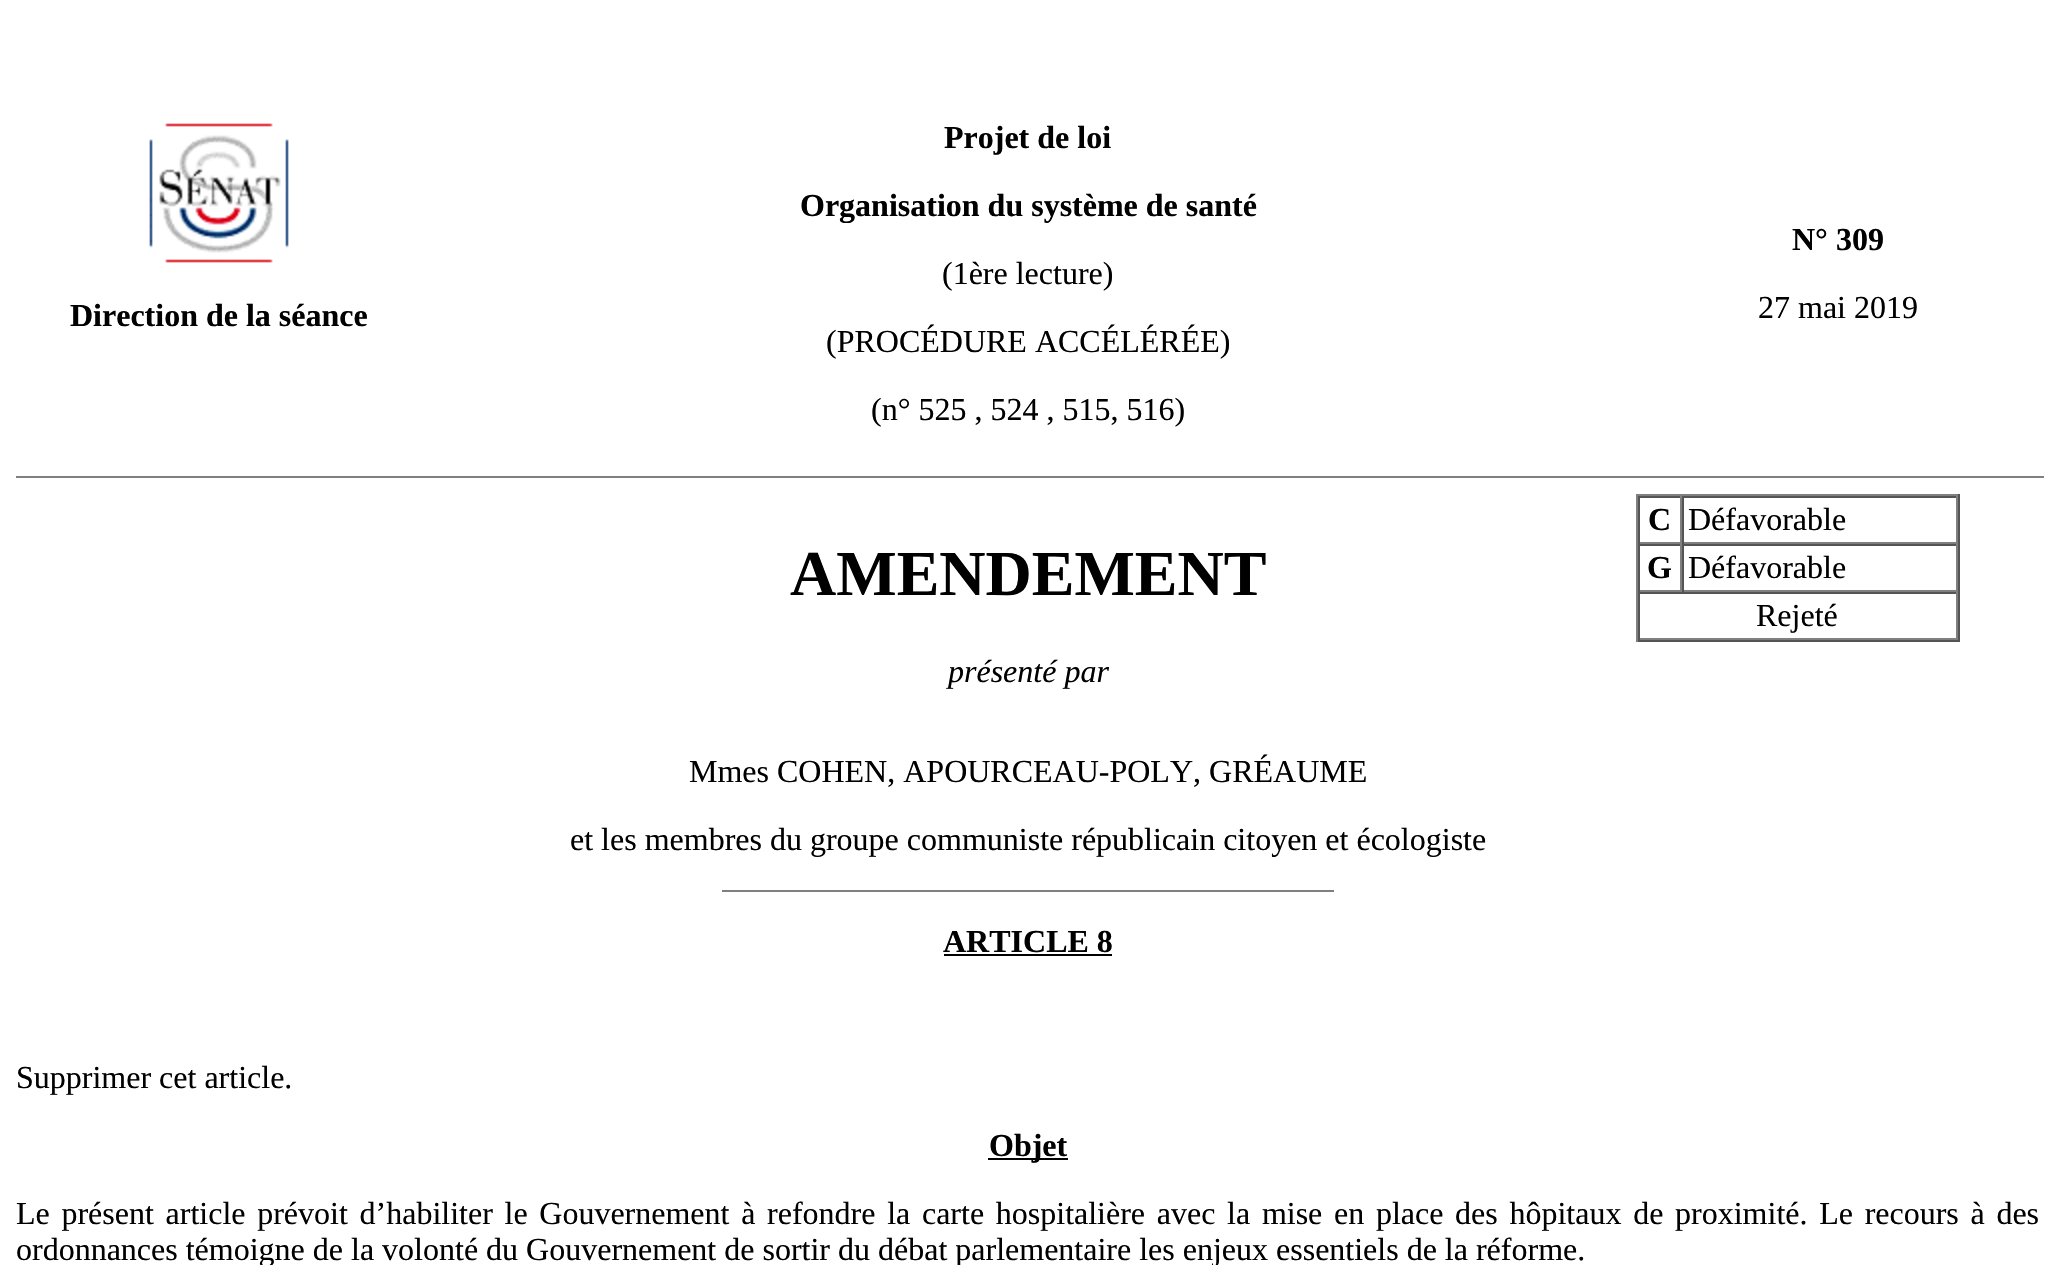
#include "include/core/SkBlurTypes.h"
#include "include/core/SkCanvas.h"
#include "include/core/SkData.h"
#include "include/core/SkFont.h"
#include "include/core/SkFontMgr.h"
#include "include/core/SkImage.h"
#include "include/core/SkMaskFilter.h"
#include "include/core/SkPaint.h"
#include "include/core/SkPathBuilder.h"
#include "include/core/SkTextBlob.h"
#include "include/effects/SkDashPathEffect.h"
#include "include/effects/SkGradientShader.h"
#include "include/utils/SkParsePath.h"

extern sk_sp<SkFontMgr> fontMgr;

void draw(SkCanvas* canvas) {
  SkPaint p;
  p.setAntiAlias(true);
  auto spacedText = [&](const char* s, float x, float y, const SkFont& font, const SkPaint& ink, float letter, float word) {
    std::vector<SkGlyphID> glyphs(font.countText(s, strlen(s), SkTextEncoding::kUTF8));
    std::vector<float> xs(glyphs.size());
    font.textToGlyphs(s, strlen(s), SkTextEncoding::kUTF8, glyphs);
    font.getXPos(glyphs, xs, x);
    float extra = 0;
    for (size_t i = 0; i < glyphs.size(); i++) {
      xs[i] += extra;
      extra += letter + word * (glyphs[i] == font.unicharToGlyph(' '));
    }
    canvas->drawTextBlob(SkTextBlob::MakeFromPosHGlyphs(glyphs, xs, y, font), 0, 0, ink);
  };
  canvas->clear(SK_ColorWHITE);
  canvas->drawImageRect(SkImages::DeferredFromEncodedData(SkData::MakeFromFileName("images/1.png")), SkRect::MakeLTRB(149, 123, 289, 263), SkSamplingOptions());
  p.setColor(SkColorSetRGB(128, 128, 128));
  canvas->drawRect(SkRect::MakeLTRB(16, 476, 2044, 478), p);
  canvas->drawRect(SkRect::MakeLTRB(1636, 494, 1960, 496), p);
  p.setColor(SkColorSetRGB(85, 85, 85));
  canvas->drawRect(SkRect::MakeLTRB(1958, 494, 1960, 642), p);
  canvas->drawRect(SkRect::MakeLTRB(1636, 640, 1960, 642), p);
  p.setColor(SkColorSetRGB(128, 128, 128));
  canvas->drawRect(SkRect::MakeLTRB(1636, 494, 1638, 642), p);
  p.setColor(SkColorSetRGB(85, 85, 85));
  canvas->drawRect(SkRect::MakeLTRB(1638, 496, 1958, 498), p);
  p.setColor(SkColorSetRGB(128, 128, 128));
  canvas->drawRect(SkRect::MakeLTRB(1680, 496, 1682, 544), p);
  canvas->drawRect(SkRect::MakeLTRB(1638, 542, 1682, 544), p);
  p.setColor(SkColorSetRGB(85, 85, 85));
  canvas->drawRect(SkRect::MakeLTRB(1638, 496, 1640, 544), p);
  p.setColor(SkColorSetRGB(128, 128, 128));
  canvas->drawRect(SkRect::MakeLTRB(1956, 496, 1958, 544), p);
  canvas->drawRect(SkRect::MakeLTRB(1682, 542, 1958, 544), p);
  p.setColor(SkColorSetRGB(85, 85, 85));
  canvas->drawRect(SkRect::MakeLTRB(1682, 496, 1684, 544), p);
  canvas->drawRect(SkRect::MakeLTRB(1638, 544, 1958, 546), p);
  p.setColor(SkColorSetRGB(128, 128, 128));
  canvas->drawRect(SkRect::MakeLTRB(1680, 544, 1682, 592), p);
  canvas->drawRect(SkRect::MakeLTRB(1638, 590, 1682, 592), p);
  p.setColor(SkColorSetRGB(85, 85, 85));
  canvas->drawRect(SkRect::MakeLTRB(1638, 544, 1640, 592), p);
  p.setColor(SkColorSetRGB(128, 128, 128));
  canvas->drawRect(SkRect::MakeLTRB(1956, 544, 1958, 592), p);
  canvas->drawRect(SkRect::MakeLTRB(1682, 590, 1958, 592), p);
  p.setColor(SkColorSetRGB(85, 85, 85));
  canvas->drawRect(SkRect::MakeLTRB(1682, 544, 1684, 592), p);
  canvas->drawRect(SkRect::MakeLTRB(1638, 592, 1958, 594), p);
  p.setColor(SkColorSetRGB(128, 128, 128));
  canvas->drawRect(SkRect::MakeLTRB(1956, 592, 1958, 640), p);
  canvas->drawRect(SkRect::MakeLTRB(1638, 638, 1958, 640), p);
  p.setColor(SkColorSetRGB(85, 85, 85));
  canvas->drawRect(SkRect::MakeLTRB(1638, 592, 1640, 640), p);
  p.setColor(SkColorSetRGB(128, 128, 128));
  canvas->drawRect(SkRect::MakeLTRB(722, 890, 1334, 892), p);
  p.setColor(SK_ColorBLACK);
  canvas->drawRect(SkRect::MakeLTRB(944, 954, 1112, 956), p);
  canvas->drawRect(SkRect::MakeLTRB(988, 1158, 1068, 1160), p);
  SkFont font1(fontMgr->matchFamilyStyle("Liberation Serif", SkFontStyle::Bold()), 32);
  font1.setSubpixel(true);
  canvas->drawString("Direction de la séance", 70, 326, font1, p);
  canvas->drawString("Projet de loi", 944, 148, font1, p);
  canvas->drawString("Organisation du système de santé", 800, 216, font1, p);
  SkFont font2(fontMgr->matchFamilyStyle("Liberation Serif", SkFontStyle::Normal()), 32);
  font2.setSubpixel(true);
  canvas->drawString("(1ère lecture)", 942, 284, font2, p);
  canvas->drawString("(PROCÉDURE ACCÉLÉRÉE)", 826, 352, font2, p);
  canvas->drawString("(n° 525 , 524 , 515, 516)", 871, 420, font2, p);
  canvas->drawString("N° 309", 1792, 250, font1, p);
  canvas->drawString("27 mai 2019", 1758, 318, font2, p);
  SkFont font3(fontMgr->matchFamilyStyle("Liberation Serif", SkFontStyle::Bold()), 64);
  font3.setSubpixel(true);
  canvas->drawString("AMENDEMENT", 790, 595, font3, p);
  SkFont font4(fontMgr->matchFamilyStyle("Liberation Serif", SkFontStyle::Italic()), 32);
  font4.setSubpixel(true);
  canvas->drawString("présenté par", 948, 682, font4, p);
  canvas->drawString("C", 1648, 530, font1, p);
  canvas->drawString("Défavorable", 1688, 530, font2, p);
  canvas->drawString("G", 1647, 578, font1, p);
  canvas->drawString("Défavorable", 1688, 578, font2, p);
  canvas->drawString("Rejeté", 1756, 626, font2, p);
  canvas->drawString("Mmes COHEN, APOURCEAU-POLY, GRÉAUME", 689, 782, font2, p);
  canvas->drawString("et les membres du groupe communiste républicain citoyen et écologiste", 570, 850, font2, p);
  canvas->drawString("ARTICLE 8", 943, 952, font1, p);
  canvas->drawString("Supprimer cet article.", 16, 1088, font2, p);
  canvas->drawString("Objet", 989, 1156, font1, p);
  spacedText("Le présent article prévoit d’habiliter le Gouvernement à refondre la carte hospitalière avec la mise en place des hôpitaux de proximité. Le recours à des", 16, 1224, font2, p, 0, 3.7f);
  canvas->drawString("ordonnances témoigne de la volonté du Gouvernement de sortir du débat parlementaire les enjeux essentiels de la réforme.", 16, 1260, font2, p);
}
